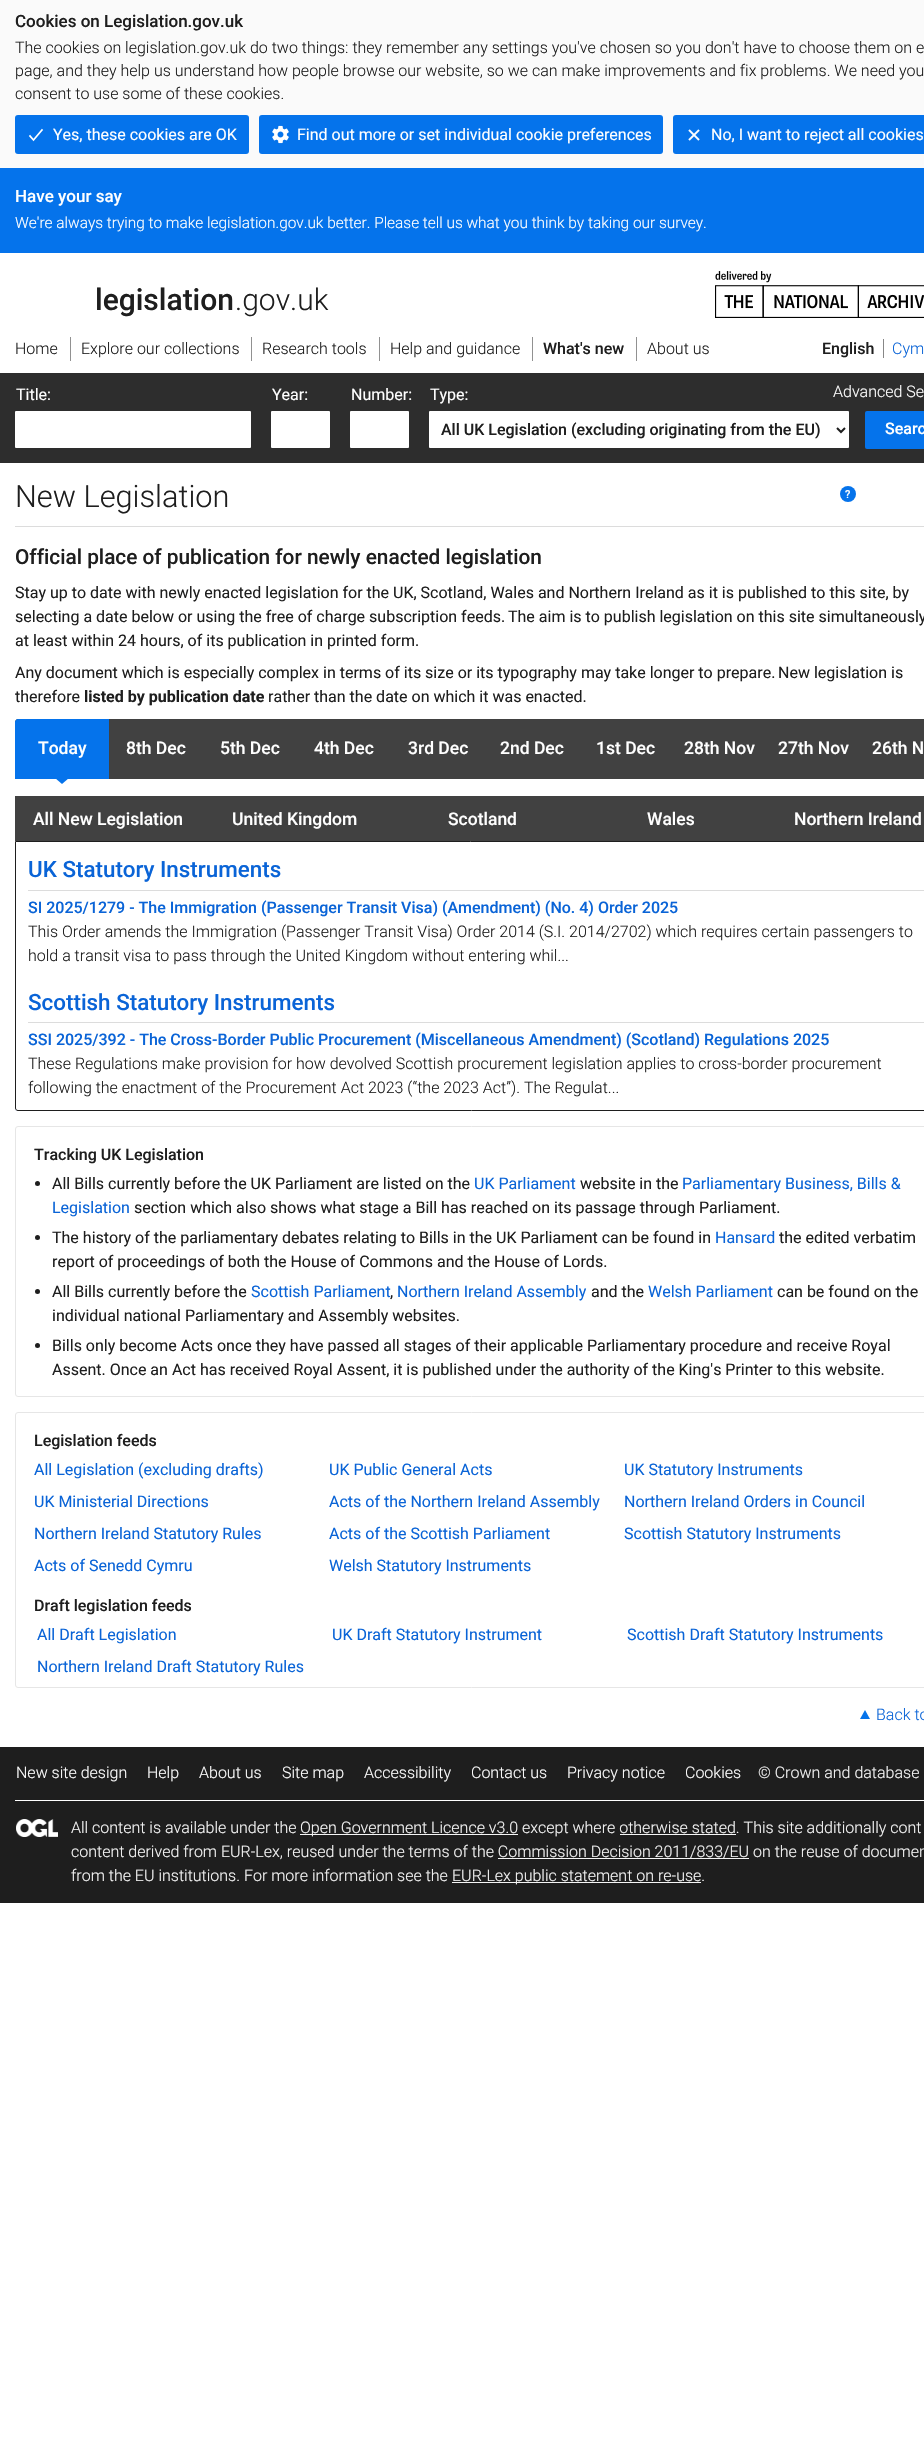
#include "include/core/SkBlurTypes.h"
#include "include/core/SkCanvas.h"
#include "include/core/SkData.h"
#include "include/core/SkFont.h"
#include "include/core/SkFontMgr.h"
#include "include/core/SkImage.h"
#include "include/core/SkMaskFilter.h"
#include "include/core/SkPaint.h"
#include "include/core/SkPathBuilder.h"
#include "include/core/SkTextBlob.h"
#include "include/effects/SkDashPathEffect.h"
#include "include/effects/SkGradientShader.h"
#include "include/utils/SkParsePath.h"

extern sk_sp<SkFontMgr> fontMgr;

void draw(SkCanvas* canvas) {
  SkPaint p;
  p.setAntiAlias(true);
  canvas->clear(SK_ColorWHITE);
  p.setColor(SkColorSetRGB(250, 250, 250));
  canvas->drawRect(SkRect::MakeLTRB(0, 0, 924, 168), p);
  p.setColor(SkColorSetRGB(5, 115, 235));
  canvas->drawRoundRect(SkRect::MakeLTRB(15, 115, 249, 154), 3, 3, p);
  p.setStyle(SkPaint::kStroke_Style);
  p.setStrokeWidth(1.7f);
  p.setStrokeCap(SkPaint::kSquare_Cap);
  p.setColor(SK_ColorWHITE);
  canvas->drawPath(SkPathBuilder().moveTo(42, 130).lineTo(33.5f, 140).lineTo(30, 136).detach(), p);
  p.setStyle(SkPaint::kFill_Style);
  p.setColor(SkColorSetRGB(5, 115, 235));
  canvas->drawRoundRect(SkRect::MakeLTRB(259, 115, 663, 154), 3, 3, p);
  canvas->drawImageRect(SkImages::DeferredFromEncodedData(SkData::MakeFromFileName("images/1.png")), SkRect::MakeLTRB(272, 125, 289, 144), SkSamplingOptions());
  canvas->drawRoundRect(SkRect::MakeLTRB(673, 115, 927, 154), 3, 3, p);
  canvas->drawImageRect(SkImages::DeferredFromEncodedData(SkData::MakeFromFileName("images/2.png")), SkRect::MakeLTRB(688, 129, 700, 141), SkSamplingOptions());
  canvas->drawRect(SkRect::MakeLTRB(0, 168, 924, 253), p);
  canvas->drawImageRect(SkImages::DeferredFromEncodedData(SkData::MakeFromFileName("images/3.png")), SkRect::MakeLTRB(715, 271, 924, 318), SkSamplingOptions());
  p.setColor(SkColorSetRGB(135, 135, 135));
  canvas->drawRect(SkRect::MakeLTRB(883, 339, 884, 358), p);
  p.setColor(SkColorSetRGB(45, 45, 45));
  canvas->drawRect(SkRect::MakeLTRB(0, 373, 924, 463), p);
  p.setColor(SkColorSetRGB(145, 145, 145));
  canvas->drawRect(SkRect::MakeLTRB(70, 337, 71, 361), p);
  canvas->drawRect(SkRect::MakeLTRB(251, 337, 252, 361), p);
  canvas->drawRect(SkRect::MakeLTRB(379, 337, 380, 361), p);
  canvas->drawRect(SkRect::MakeLTRB(532, 337, 533, 361), p);
  canvas->drawRect(SkRect::MakeLTRB(636, 337, 637, 361), p);
  p.setColor(SK_ColorWHITE);
  canvas->drawRoundRect(SkRect::MakeLTRB(15, 411, 251, 448), 1, 1, p);
  canvas->drawRoundRect(SkRect::MakeLTRB(271, 411, 330, 448), 1, 1, p);
  canvas->drawRoundRect(SkRect::MakeLTRB(350, 411, 409, 448), 1, 1, p);
  canvas->drawRoundRect(SkRect::MakeLTRB(429, 411, 849, 448), 1, 1, p);
  p.setStyle(SkPaint::kStroke_Style);
  p.setStrokeWidth(2);
  p.setStrokeCap(SkPaint::kButt_Cap);
  p.setColor(SkColorSetRGB(30, 30, 30));
  canvas->drawPath(SkPathBuilder().moveTo(837, 428).lineTo(841, 432).lineTo(845, 428).detach(), p);
  p.setStyle(SkPaint::kFill_Style);
  p.setColor(SkColorSetRGB(5, 115, 235));
  canvas->drawRoundRect(SkRect::MakeLTRB(865, 411, 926, 449), 2, 2, p);
  p.setColor(SkColorSetRGB(220, 220, 220));
  canvas->drawRect(SkRect::MakeLTRB(15, 526, 924, 527), p);
  p.setColor(SkColorSetRGB(5, 115, 235));
  canvas->drawCircle(848, 494, 8, p);
  p.setColor(SkColorSetRGB(235, 239, 248));
  canvas->drawRect(SkRect::MakeLTRB(15, 1108, 18, 1111), p);
  p.setColor(SK_ColorWHITE);
  canvas->drawPath(SkPathBuilder().moveTo(15.5f, 841.5f).lineTo(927.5f, 841.5f).lineTo(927.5f, 1108).cubicTo(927.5f, 1109.5f, 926.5f, 1110.5f, 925, 1110.5f).lineTo(18, 1110.5f).cubicTo(16.5f, 1110.5f, 15.5f, 1109.5f, 15.5f, 1108).close().detach(), p);
  p.setStyle(SkPaint::kStroke_Style);
  p.setStrokeWidth(1);
  p.setColor(SkColorSetRGB(30, 30, 30));
  canvas->drawPath(SkPathBuilder().moveTo(15.5f, 841.5f).lineTo(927.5f, 841.5f).lineTo(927.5f, 1108).cubicTo(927.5f, 1109.5f, 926.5f, 1110.5f, 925, 1110.5f).lineTo(18, 1110.5f).cubicTo(16.5f, 1110.5f, 15.5f, 1109.5f, 15.5f, 1108).close().detach(), p);
  p.setStyle(SkPaint::kFill_Style);
  p.setColor(SkColorSetRGB(220, 220, 220));
  canvas->drawRect(SkRect::MakeLTRB(28, 890, 924, 891), p);
  canvas->drawRect(SkRect::MakeLTRB(28, 1022, 924, 1023), p);
  p.setColor(SkColorSetRGB(65, 65, 65));
  canvas->drawRect(SkRect::MakeLTRB(15, 796, 924, 841), p);
  canvas->drawPath(SkPathBuilder().moveTo(18, 719).lineTo(924, 719).cubicTo(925.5f, 719, 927, 720.5f, 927, 722).lineTo(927, 779).lineTo(15, 779).lineTo(15, 722).cubicTo(15, 720.5f, 16.5f, 719, 18, 719).close().detach(), p);
  p.setColor(SkColorSetRGB(5, 115, 235));
  canvas->drawPath(SkPathBuilder().moveTo(18, 719).lineTo(109, 719).lineTo(109, 780).lineTo(15, 780).lineTo(15, 722).cubicTo(15, 720.5f, 16.5f, 719, 18, 719).close().detach(), p);
  p.setColor(SK_ColorWHITE);
  canvas->drawRect(SkRect::MakeLTRB(15, 779, 109, 780), p);
  p.setColor(SkColorSetRGB(5, 115, 235));
  canvas->drawPath(SkPathBuilder().moveTo(55, 778).lineTo(69, 778).lineTo(62, 784).close().detach(), p);
  p.setStyle(SkPaint::kStroke_Style);
  p.setColor(SkColorSetRGB(230, 230, 230));
  canvas->drawRoundRect(SkRect::MakeLTRB(15.5f, 1126.5f, 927.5f, 1396.5f), 2.5f, 2.5f, p);
  p.setStyle(SkPaint::kFill_Style);
  p.setColor(SkColorSetRGB(30, 30, 30));
  canvas->drawCircle(37.5f, 1183.5f, 2.5f, p);
  canvas->drawCircle(37.5f, 1237.5f, 2.5f, p);
  canvas->drawCircle(37.5f, 1291.5f, 2.5f, p);
  canvas->drawCircle(37.5f, 1345.5f, 2.5f, p);
  p.setStyle(SkPaint::kStroke_Style);
  p.setColor(SkColorSetRGB(230, 230, 230));
  canvas->drawRoundRect(SkRect::MakeLTRB(15.5f, 1412.5f, 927.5f, 1687.5f), 2.5f, 2.5f, p);
  p.setStyle(SkPaint::kFill_Style);
  p.setColor(SkColorSetRGB(5, 115, 235));
  canvas->drawPath(SkPathBuilder().moveTo(870, 1719).lineTo(860, 1719).lineTo(865, 1710).close().detach(), p);
  p.setColor(SkColorSetRGB(30, 30, 30));
  canvas->drawRect(SkRect::MakeLTRB(0, 1747, 924, 1903), p);
  p.setColor(SK_ColorWHITE);
  canvas->drawRect(SkRect::MakeLTRB(15, 1800, 924, 1801), p);
  canvas->drawImageRect(SkImages::DeferredFromEncodedData(SkData::MakeFromFileName("images/4.png")), SkRect::MakeLTRB(16, 1819, 58, 1837), SkSamplingOptions());
  p.setColor(SkColorSetRGB(245, 245, 245));
  canvas->drawRect(SkRect::MakeLTRB(300, 1834, 518, 1835), p);
  canvas->drawRect(SkRect::MakeLTRB(620, 1834, 736, 1835), p);
  canvas->drawRect(SkRect::MakeLTRB(498, 1858, 749, 1859), p);
  canvas->drawRect(SkRect::MakeLTRB(452, 1882, 701, 1883), p);
  SkFont font1(fontMgr->matchFamilyStyle("Roboto", SkFontStyle(500, SkFontStyle::kNormal_Width, SkFontStyle::kUpright_Slant)), 17);
  font1.setSubpixel(true);
  p.setColor(SkColorSetRGB(30, 30, 30));
  canvas->drawString("Cookies on Legislation.gov.uk", 15, 27, font1, p);
  SkFont font2(fontMgr->matchFamilyStyle("Roboto", SkFontStyle(300, SkFontStyle::kNormal_Width, SkFontStyle::kUpright_Slant)), 16);
  font2.setSubpixel(true);
  canvas->drawString("The cookies on legislation.gov.uk do two things: they remember any settings you've chosen so you don't have to choose them on e", 15, 53, font2, p);
  canvas->drawString("page, and they help us understand how people browse our website, so we can make improvements and fix problems. We need you", 15, 76, font2, p);
  canvas->drawString("consent to use some of these cookies.", 15, 99, font2, p);
  SkFont font3(fontMgr->matchFamilyStyle("Roboto", SkFontStyle::Normal()), 16);
  font3.setSubpixel(true);
  p.setColor(SK_ColorWHITE);
  canvas->drawString("Yes, these cookies are OK", 53, 140, font3, p);
  canvas->drawString("Find out more or set individual cookie preferences", 297, 140, font3, p);
  canvas->drawString("No, I want to reject all cookies", 711, 140, font3, p);
  canvas->drawString("Have your say", 15, 202, font1, p);
  SkFont font4(fontMgr->matchFamilyStyle("Roboto", SkFontStyle(300, SkFontStyle::kNormal_Width, SkFontStyle::kUpright_Slant)), 15.4f);
  font4.setSubpixel(true);
  canvas->drawString("We're always trying to make legislation.gov.uk better. Please tell us what you think by taking our survey.", 15, 228, font4, p);
  SkFont font5(fontMgr->matchFamilyStyle("Roboto", SkFontStyle(500, SkFontStyle::kNormal_Width, SkFontStyle::kUpright_Slant)), 30);
  font5.setSubpixel(true);
  p.setColor(SkColorSetRGB(30, 30, 30));
  canvas->drawString("legislation", 95, 310, font5, p);
  SkFont font6(fontMgr->matchFamilyStyle("Roboto", SkFontStyle(300, SkFontStyle::kNormal_Width, SkFontStyle::kUpright_Slant)), 30);
  font6.setSubpixel(true);
  canvas->drawString(".gov.uk", 235, 310, font6, p);
  SkFont font7(fontMgr->matchFamilyStyle("Roboto", SkFontStyle(500, SkFontStyle::kNormal_Width, SkFontStyle::kUpright_Slant)), 16);
  font7.setSubpixel(true);
  canvas->drawString("English", 822, 354, font7, p);
  p.setColor(SkColorSetRGB(10, 100, 215));
  canvas->drawString("Cym", 892, 354, font2, p);
  p.setColor(SkColorSetRGB(30, 30, 30));
  canvas->drawString("Home", 15, 354, font2, p);
  canvas->drawString("Explore our collections", 81, 354, font2, p);
  canvas->drawString("Research tools", 262, 354, font2, p);
  canvas->drawString("Help and guidance", 390, 354, font2, p);
  canvas->drawString("What's new", 543, 354, font7, p);
  canvas->drawString("About us", 647, 354, font2, p);
  p.setColor(SK_ColorWHITE);
  canvas->drawString("Title:", 16, 400, font3, p);
  canvas->drawString("Year:", 272, 400, font3, p);
  canvas->drawString("Number:", 351, 400, font3, p);
  canvas->drawString("Type:", 430, 400, font3, p);
  p.setColor(SkColorSetRGB(30, 30, 30));
  canvas->drawString("All UK Legislation (excluding originating from the EU)", 441, 435, font7, p);
  p.setColor(SK_ColorWHITE);
  canvas->drawString("Advanced Se", 833, 397, font2, p);
  canvas->drawString("Searc", 885, 434, font7, p);
  SkFont font8(fontMgr->matchFamilyStyle("Roboto", SkFontStyle(300, SkFontStyle::kNormal_Width, SkFontStyle::kUpright_Slant)), 30.75f);
  font8.setSubpixel(true);
  p.setColor(SkColorSetRGB(30, 30, 30));
  canvas->drawString("New Legislation", 15, 507, font8, p);
  SkFont font9(fontMgr->matchFamilyStyle("Roboto", SkFontStyle(500, SkFontStyle::kNormal_Width, SkFontStyle::kUpright_Slant)), 11);
  font9.setSubpixel(true);
  p.setColor(SK_ColorWHITE);
  canvas->drawString("?", 845, 498, font9, p);
  SkFont font10(fontMgr->matchFamilyStyle("Roboto", SkFontStyle(500, SkFontStyle::kNormal_Width, SkFontStyle::kUpright_Slant)), 17.5f);
  font10.setSubpixel(true);
  canvas->drawString("United Kingdom", 232, 825, font10, p);
  canvas->drawString("Scotland", 448, 825, font10, p);
  canvas->drawString("Wales", 647, 825, font10, p);
  canvas->drawString("Northern Ireland", 794, 825, font10, p);
  SkFont font11(fontMgr->matchFamilyStyle("Roboto", SkFontStyle(500, SkFontStyle::kNormal_Width, SkFontStyle::kUpright_Slant)), 22.4f);
  font11.setSubpixel(true);
  p.setColor(SkColorSetRGB(10, 100, 215));
  canvas->drawString("UK Statutory Instruments", 28, 877, font11, p);
  canvas->drawString("SI 2025/1279 - The Immigration (Passenger Transit Visa) (Amendment) (No. 4) Order 2025", 28, 913, font7, p);
  p.setColor(SkColorSetRGB(30, 30, 30));
  canvas->drawString("This Order amends the Immigration (Passenger Transit Visa) Order 2014 (S.I. 2014/2702) which requires certain passengers to", 28, 937, font2, p);
  canvas->drawString("hold a transit visa to pass through the United Kingdom without entering whil...", 28, 961, font2, p);
  p.setColor(SkColorSetRGB(10, 100, 215));
  canvas->drawString("Scottish Statutory Instruments", 28, 1010, font11, p);
  canvas->drawString("SSI 2025/392 - The Cross-Border Public Procurement (Miscellaneous Amendment) (Scotland) Regulations 2025", 28, 1045, font7, p);
  p.setColor(SkColorSetRGB(30, 30, 30));
  canvas->drawString("These Regulations make provision for how devolved Scottish procurement legislation applies to cross-border procurement", 28, 1069, font2, p);
  canvas->drawString("following the enactment of the Procurement Act 2023 (“the 2023 Act”). The Regulat...", 28, 1093, font2, p);
  p.setColor(SK_ColorWHITE);
  canvas->drawString("All New Legislation", 33, 825, font10, p);
  canvas->drawString("Today", 38, 754, font10, p);
  canvas->drawString("8th Dec", 126, 754, font10, p);
  canvas->drawString("5th Dec", 220, 754, font10, p);
  canvas->drawString("4th Dec", 314, 754, font10, p);
  canvas->drawString("3rd Dec", 408, 754, font10, p);
  canvas->drawString("2nd Dec", 500, 754, font10, p);
  canvas->drawString("1st Dec", 596, 754, font10, p);
  canvas->drawString("28th Nov", 684, 754, font10, p);
  canvas->drawString("27th Nov", 778, 754, font10, p);
  canvas->drawString("26th N", 872, 754, font10, p);
  p.setColor(SkColorSetRGB(30, 30, 30));
  canvas->drawString("Tracking UK Legislation", 34, 1160, font7, p);
  canvas->drawString("All Bills currently before the UK Parliament are listed on the", 52, 1189, font3, p);
  p.setColor(SkColorSetRGB(10, 100, 215));
  canvas->drawString("UK Parliament", 474, 1189, font3, p);
  p.setColor(SkColorSetRGB(30, 30, 30));
  canvas->drawString("website in the", 580, 1189, font3, p);
  p.setColor(SkColorSetRGB(10, 100, 215));
  canvas->drawString("Parliamentary Business, Bills &", 682, 1189, font3, p);
  canvas->drawString("Legislation", 52, 1213, font3, p);
  p.setColor(SkColorSetRGB(30, 30, 30));
  canvas->drawString("section which also shows what stage a Bill has reached on its passage through Parliament.", 134, 1213, font3, p);
  canvas->drawString("The history of the parliamentary debates relating to Bills in the UK Parliament can be found in", 52, 1243, font3, p);
  p.setColor(SkColorSetRGB(10, 100, 215));
  canvas->drawString("Hansard", 715, 1243, font3, p);
  p.setColor(SkColorSetRGB(30, 30, 30));
  canvas->drawString("the edited verbatim", 779, 1243, font3, p);
  canvas->drawString("report of proceedings of both the House of Commons and the House of Lords.", 52, 1267, font3, p);
  canvas->drawString("All Bills currently before the", 52, 1297, font3, p);
  p.setColor(SkColorSetRGB(10, 100, 215));
  canvas->drawString("Scottish Parliament", 251, 1297, font3, p);
  canvas->drawString("Northern Ireland Assembly", 397, 1297, font3, p);
  p.setColor(SkColorSetRGB(30, 30, 30));
  canvas->drawString("and the", 591, 1297, font3, p);
  p.setColor(SkColorSetRGB(10, 100, 215));
  canvas->drawString("Welsh Parliament", 648, 1297, font3, p);
  p.setColor(SkColorSetRGB(30, 30, 30));
  canvas->drawString("can be found on the", 777, 1297, font3, p);
  canvas->drawString(",", 390, 1297, font3, p);
  canvas->drawString("individual national Parliamentary and Assembly websites.", 52, 1321, font3, p);
  canvas->drawString("Bills only become Acts once they have passed all stages of their applicable Parliamentary procedure and receive Royal", 52, 1351, font3, p);
  canvas->drawString("Assent. Once an Act has received Royal Assent, it is published under the authority of the King's Printer to this website.", 52, 1375, font3, p);
  canvas->drawString("Legislation feeds", 34, 1446, font7, p);
  p.setColor(SkColorSetRGB(10, 100, 215));
  canvas->drawString("All Legislation (excluding drafts)", 34, 1475, font3, p);
  canvas->drawString("UK Public General Acts", 329, 1475, font3, p);
  canvas->drawString("UK Statutory Instruments", 624, 1475, font3, p);
  canvas->drawString("UK Ministerial Directions", 34, 1507, font3, p);
  canvas->drawString("Acts of the Northern Ireland Assembly", 329, 1507, font3, p);
  canvas->drawString("Northern Ireland Orders in Council", 624, 1507, font3, p);
  canvas->drawString("Northern Ireland Statutory Rules", 34, 1539, font3, p);
  canvas->drawString("Acts of the Scottish Parliament", 329, 1539, font3, p);
  canvas->drawString("Scottish Statutory Instruments", 624, 1539, font3, p);
  canvas->drawString("Acts of Senedd Cymru", 34, 1571, font3, p);
  canvas->drawString("Welsh Statutory Instruments", 329, 1571, font3, p);
  p.setColor(SkColorSetRGB(30, 30, 30));
  canvas->drawString("Draft legislation feeds", 34, 1611, font7, p);
  p.setColor(SkColorSetRGB(10, 100, 215));
  canvas->drawString("All Draft Legislation", 37, 1640, font3, p);
  canvas->drawString("UK Draft Statutory Instrument", 332, 1640, font3, p);
  canvas->drawString("Scottish Draft Statutory Instruments", 627, 1640, font3, p);
  canvas->drawString("Northern Ireland Draft Statutory Rules", 37, 1672, font3, p);
  SkFont font12(fontMgr->matchFamilyStyle("Roboto", SkFontStyle(500, SkFontStyle::kNormal_Width, SkFontStyle::kUpright_Slant)), 20.8f);
  font12.setSubpixel(true);
  p.setColor(SkColorSetRGB(30, 30, 30));
  canvas->drawString("Official place of publication for newly enacted legislation", 15, 564, font12, p);
  canvas->drawString("Stay up to date with newly enacted legislation for the UK, Scotland, Wales and Northern Ireland as it is published to this site, by", 15, 598, font3, p);
  canvas->drawString("selecting a date below or using the free of charge subscription feeds.", 15, 622, font3, p);
  canvas->drawString("The aim is to publish legislation on this site simultaneously", 508, 622, font3, p);
  canvas->drawString("at least within 24 hours, of its publication in printed form.", 15, 646, font3, p);
  canvas->drawString("Any document which is especially complex in terms of its size or its typography may take longer to prepare.", 15, 678, font3, p);
  canvas->drawString("New legislation is", 778, 678, font3, p);
  canvas->drawString("therefore", 15, 702, font3, p);
  SkFont font13(fontMgr->matchFamilyStyle("Roboto", SkFontStyle::Bold()), 16);
  font13.setSubpixel(true);
  canvas->drawString("listed by publication date", 84, 702, font13, p);
  canvas->drawString("rather than the date on which it was enacted.", 268, 702, font3, p);
  p.setColor(SkColorSetRGB(10, 100, 215));
  canvas->drawString("Back to", 876, 1720, font2, p);
  p.setColor(SK_ColorWHITE);
  canvas->drawString("New site design", 16, 1778, font2, p);
  canvas->drawString("Help", 147, 1778, font2, p);
  canvas->drawString("About us", 199, 1778, font2, p);
  canvas->drawString("Site map", 282, 1778, font2, p);
  canvas->drawString("Accessibility", 364, 1778, font2, p);
  canvas->drawString("Contact us", 471, 1778, font2, p);
  canvas->drawString("Privacy notice", 567, 1778, font2, p);
  canvas->drawString("Cookies", 685, 1778, font2, p);
  p.setColor(SkColorSetRGB(245, 245, 245));
  canvas->drawString("© Crown and database", 758, 1778, font2, p);
  canvas->drawString("All content is available under the", 71, 1833, font2, p);
  canvas->drawString("Open Government Licence v3.0 except where otherwise stated. This site additionally cont", 300, 1833, font2, p);
  canvas->drawString("content derived from EUR-Lex, reused under the terms of the Commission Decision 2011/833/EU on the reuse of documen", 71, 1857, font2, p);
  canvas->drawString("from the EU institutions. For more information see the", 71, 1881, font2, p);
  canvas->drawString("EUR-Lex public statement on re-use.", 452, 1881, font2, p);
}
